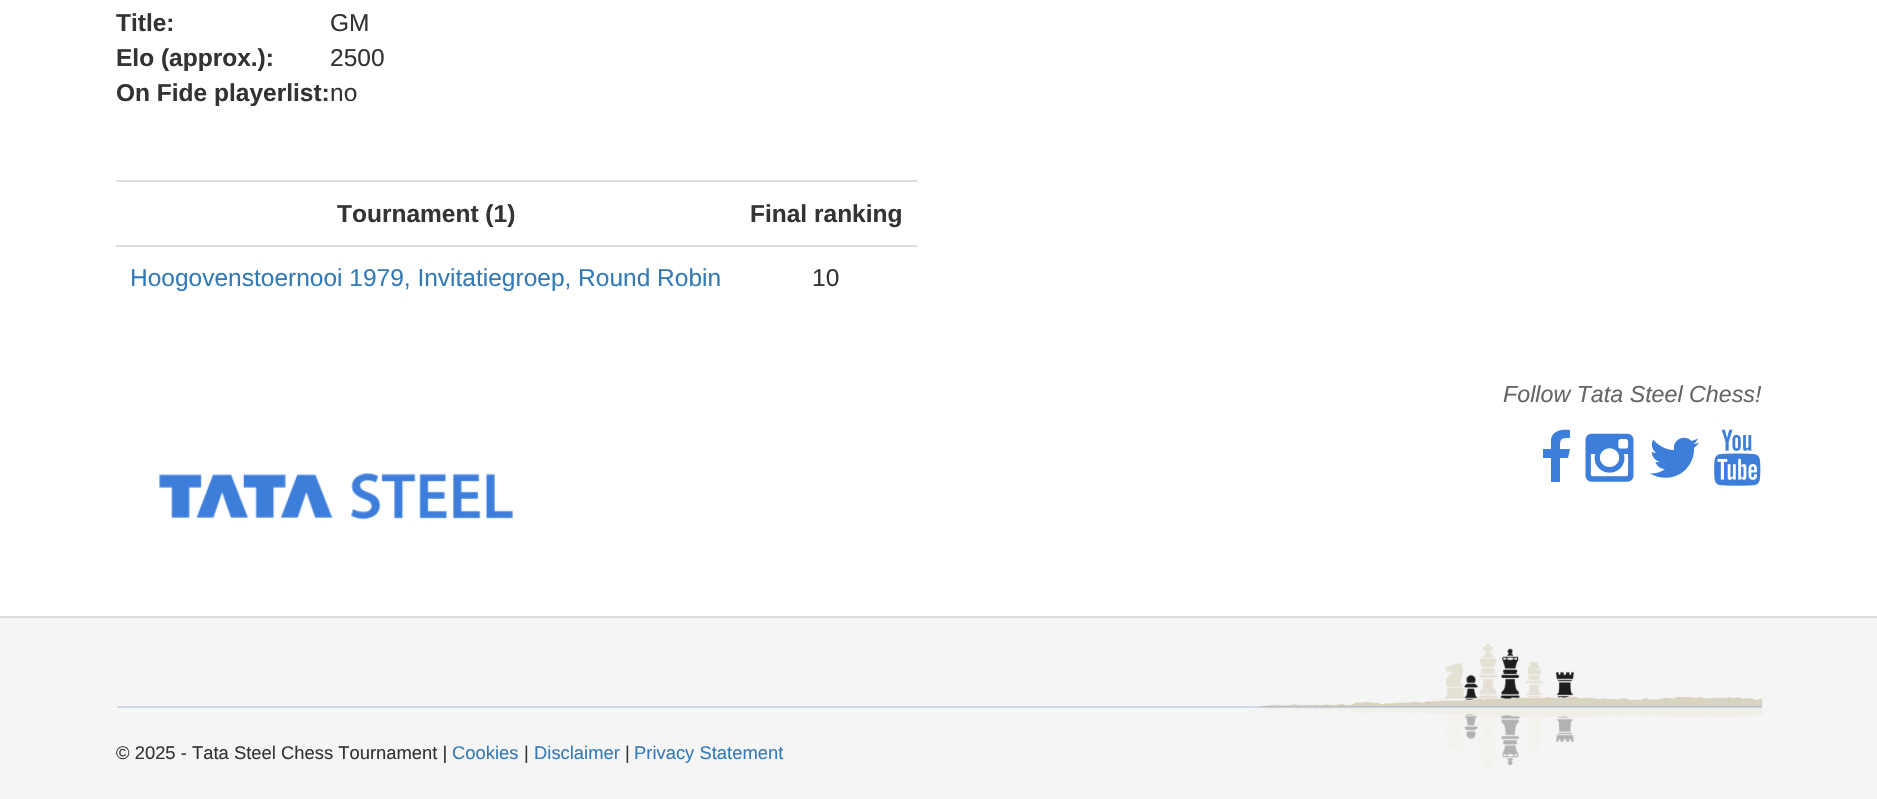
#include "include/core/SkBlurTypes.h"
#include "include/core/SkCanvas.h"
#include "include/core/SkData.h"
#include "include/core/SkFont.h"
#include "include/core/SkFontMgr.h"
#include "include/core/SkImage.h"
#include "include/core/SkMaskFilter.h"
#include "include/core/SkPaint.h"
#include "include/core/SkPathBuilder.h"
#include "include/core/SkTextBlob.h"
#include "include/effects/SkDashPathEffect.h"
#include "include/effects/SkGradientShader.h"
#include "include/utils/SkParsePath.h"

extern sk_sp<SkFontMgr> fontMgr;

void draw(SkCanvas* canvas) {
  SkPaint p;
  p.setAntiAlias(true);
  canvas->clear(SK_ColorWHITE);
  p.setColor(SkColorSetRGB(221, 221, 221));
  canvas->drawRect(SkRect::MakeLTRB(116, 180, 917, 182), p);
  canvas->drawRect(SkRect::MakeLTRB(116, 245, 917, 247), p);
  p.setColor(SkColorSetRGB(61, 126, 219));
  canvas->drawPath(SkPathBuilder().moveTo(1570, 430).lineTo(1570, 438).cubicTo(1560, 438, 1560, 439, 1560, 449).lineTo(1570, 449).lineTo(1568, 458).lineTo(1560, 458).lineTo(1560, 482).lineTo(1551, 482).lineTo(1551, 458).lineTo(1543, 458).lineTo(1543, 449).lineTo(1551, 449).lineTo(1551, 439).cubicTo(1553, 430, 1562, 429, 1570, 430).close().detach(), p);
  canvas->drawImageRect(SkImages::DeferredFromEncodedData(SkData::MakeFromFileName("images/1.png")), SkRect::MakeLTRB(1585, 433, 1634, 482), SkSamplingOptions());
  canvas->drawImageRect(SkImages::DeferredFromEncodedData(SkData::MakeFromFileName("images/2.png")), SkRect::MakeLTRB(1650, 437, 1699, 478), SkSamplingOptions());
  canvas->drawImageRect(SkImages::DeferredFromEncodedData(SkData::MakeFromFileName("images/3.png")), SkRect::MakeLTRB(1714, 429, 1761, 486), SkSamplingOptions());
  canvas->drawImageRect(SkImages::DeferredFromEncodedData(SkData::MakeFromFileName("images/4.png")), SkRect::MakeLTRB(159, 473, 513, 520), SkSamplingOptions());
  p.setColor(SkColorSetRGB(245, 245, 245));
  canvas->drawRect(SkRect::MakeLTRB(0, 618, 1877, 799), p);
  p.setColor(SkColorSetRGB(221, 221, 221));
  canvas->drawRect(SkRect::MakeLTRB(0, 616, 1877, 618), p);
  canvas->drawImageRect(SkImages::DeferredFromEncodedData(SkData::MakeFromFileName("images/5.png")), SkRect::MakeLTRB(117, 644, 1763, 770), SkSamplingOptions());
  SkFont font1(fontMgr->matchFamilyStyle("Liberation Sans", SkFontStyle::Bold()), 24.5f);
  font1.setSubpixel(true);
  p.setColor(SkColorSetRGB(51, 51, 51));
  canvas->drawString("Title:", 116, 31, font1, p);
  SkFont font2(fontMgr->matchFamilyStyle("Liberation Sans", SkFontStyle::Normal()), 24.5f);
  font2.setSubpixel(true);
  canvas->drawString("GM", 330, 31, font2, p);
  canvas->drawString("Elo (approx.):", 116, 66, font1, p);
  canvas->drawString("2500", 330, 66, font2, p);
  canvas->drawString("On Fide playerlist:", 116, 101, font1, p);
  canvas->drawString("no", 330, 101, font2, p);
  canvas->drawString("Tournament (1)", 337, 222, font1, p);
  canvas->drawString("Final ranking", 750, 222, font1, p);
  p.setColor(SkColorSetRGB(51, 122, 183));
  canvas->drawString("Hoogovenstoernooi 1979, Invitatiegroep, Round Robin", 130, 286, font2, p);
  p.setColor(SkColorSetRGB(51, 51, 51));
  canvas->drawString("10", 812, 286, font2, p);
  SkFont font3(fontMgr->matchFamilyStyle("Liberation Sans", SkFontStyle::Italic()), 23.25f);
  font3.setSubpixel(true);
  p.setColor(SkColorSetRGB(102, 102, 102));
  canvas->drawString("Follow Tata Steel Chess!", 1503, 402, font3, p);
  SkFont font4(fontMgr->matchFamilyStyle("Liberation Sans", SkFontStyle::Normal()), 18.4f);
  font4.setSubpixel(true);
  p.setColor(SkColorSetRGB(51, 51, 51));
  canvas->drawString("© 2025 - Tata Steel Chess Tournament |", 116, 759, font4, p);
  p.setColor(SkColorSetRGB(51, 122, 183));
  canvas->drawString("Cookies", 452, 759, font4, p);
  p.setColor(SkColorSetRGB(51, 51, 51));
  canvas->drawString("|", 524, 759, font4, p);
  p.setColor(SkColorSetRGB(51, 122, 183));
  canvas->drawString("Disclaimer", 534, 759, font4, p);
  p.setColor(SkColorSetRGB(51, 51, 51));
  canvas->drawString("|", 625, 759, font4, p);
  p.setColor(SkColorSetRGB(51, 122, 183));
  canvas->drawString("Privacy Statement", 634, 759, font4, p);
}
